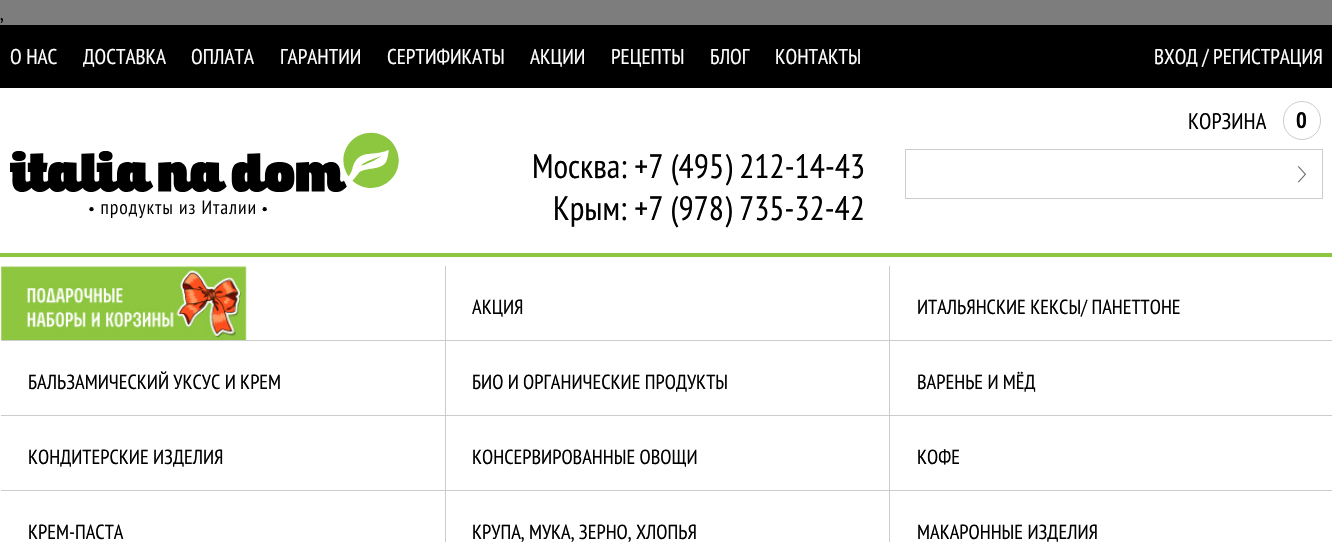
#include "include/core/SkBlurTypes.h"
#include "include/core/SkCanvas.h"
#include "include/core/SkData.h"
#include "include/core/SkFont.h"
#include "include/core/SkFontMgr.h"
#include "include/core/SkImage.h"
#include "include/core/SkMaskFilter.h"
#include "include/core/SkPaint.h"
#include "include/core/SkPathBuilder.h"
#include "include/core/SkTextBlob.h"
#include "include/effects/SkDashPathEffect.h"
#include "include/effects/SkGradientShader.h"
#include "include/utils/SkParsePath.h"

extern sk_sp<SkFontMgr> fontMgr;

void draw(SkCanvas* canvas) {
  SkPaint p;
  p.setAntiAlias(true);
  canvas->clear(SkColorSetRGB(125, 125, 125));
  p.setColor(SK_ColorWHITE);
  canvas->drawRect(SkRect::MakeLTRB(0, 88, 1332, 542), p);
  p.setColor(SK_ColorBLACK);
  canvas->drawRect(SkRect::MakeLTRB(0, 25, 1332, 88), p);
  p.setStyle(SkPaint::kStroke_Style);
  p.setStrokeWidth(1);
  p.setColor(SkColorSetRGB(204, 204, 204));
  canvas->drawRoundRect(SkRect::MakeLTRB(1283.5f, 101.5f, 1320.5f, 139.5f), 18.5f, 18.5f, p);
  canvas->drawRect(SkRect::MakeLTRB(905.5f, 149.5f, 1322.5f, 198.5f), p);
  canvas->drawImageRect(SkImages::DeferredFromEncodedData(SkData::MakeFromFileName("images/1.png")), SkRect::MakeLTRB(1297, 166, 1306, 183), SkSamplingOptions());
  canvas->drawImageRect(SkImages::DeferredFromEncodedData(SkData::MakeFromFileName("images/2.png")), SkRect::MakeLTRB(10, 132, 399, 218), SkSamplingOptions());
  p.setStyle(SkPaint::kFill_Style);
  p.setColor(SkColorSetRGB(141, 198, 63));
  canvas->drawRect(SkRect::MakeLTRB(0, 253, 1332, 257), p);
  p.setColor(SkColorSetRGB(204, 204, 204));
  canvas->drawRect(SkRect::MakeLTRB(445, 266, 446, 542), p);
  canvas->drawRect(SkRect::MakeLTRB(1, 340, 446, 341), p);
  canvas->drawImageRect(SkImages::DeferredFromEncodedData(SkData::MakeFromFileName("images/3.png")), SkRect::MakeLTRB(1, 266, 247, 340), SkSamplingOptions());
  canvas->drawRect(SkRect::MakeLTRB(889, 266, 890, 542), p);
  canvas->drawRect(SkRect::MakeLTRB(446, 340, 1332, 341), p);
  canvas->drawRect(SkRect::MakeLTRB(1, 415, 1332, 416), p);
  canvas->drawRect(SkRect::MakeLTRB(1, 490, 1332, 491), p);
  SkFont font1(fontMgr->matchFamilyStyle("PT Sans Narrow", SkFontStyle::Normal()), 20);
  font1.setSubpixel(true);
  p.setColor(SK_ColorBLACK);
  canvas->drawString(",", 0, 20, font1, p);
  SkFont font2(fontMgr->matchFamilyStyle("PT Sans Narrow", SkFontStyle::Normal()), 21.25f);
  font2.setSubpixel(true);
  p.setColor(SK_ColorWHITE);
  canvas->drawString("О НАС", 10, 64, font2, p);
  canvas->drawString("ДОСТАВКА", 83, 64, font2, p);
  canvas->drawString("ОПЛАТА", 191, 64, font2, p);
  canvas->drawString("ГАРАНТИИ", 280, 64, font2, p);
  canvas->drawString("СЕРТИФИКАТЫ", 387, 64, font2, p);
  canvas->drawString("АКЦИИ", 530, 64, font2, p);
  canvas->drawString("РЕЦЕПТЫ", 611, 64, font2, p);
  canvas->drawString("БЛОГ", 710, 64, font2, p);
  canvas->drawString("КОНТАКТЫ", 775, 64, font2, p);
  canvas->drawString("ВХОД / РЕГИСТРАЦИЯ", 1154, 64, font2, p);
  SkFont font3(fontMgr->matchFamilyStyle("PT Sans Narrow", SkFontStyle::Normal()), 22.5f);
  font3.setSubpixel(true);
  p.setColor(SK_ColorBLACK);
  canvas->drawString("КОРЗИНА", 1188, 129, font3, p);
  SkFont font4(fontMgr->matchFamilyStyle("PT Sans Narrow", SkFontStyle::Bold()), 22.5f);
  font4.setSubpixel(true);
  canvas->drawString("0", 1296, 128, font4, p);
  SkFont font5(fontMgr->matchFamilyStyle("PT Sans Narrow", SkFontStyle::Normal()), 33.75f);
  font5.setSubpixel(true);
  canvas->drawString("Москва: +7 (495) 212-14-43", 532, 178, font5, p);
  canvas->drawString("Крым: +7 (978) 735-32-42", 553, 220, font5, p);
  SkFont font6(fontMgr->matchFamilyStyle("PT Sans Narrow", SkFontStyle::Normal()), 20.4f);
  font6.setSubpixel(true);
  canvas->drawString("АКЦИЯ", 472, 314, font6, p);
  canvas->drawString("ИТАЛЬЯНСКИЕ КЕКСЫ/ ПАНЕТТОНЕ", 917, 314, font6, p);
  canvas->drawString("БАЛЬЗАМИЧЕСКИЙ УКСУС И КРЕМ", 28, 389, font6, p);
  canvas->drawString("БИО И ОРГАНИЧЕСКИЕ ПРОДУКТЫ", 472, 389, font6, p);
  canvas->drawString("ВАРЕНЬЕ И МЁД", 917, 389, font6, p);
  canvas->drawString("КОНДИТЕРСКИЕ ИЗДЕЛИЯ", 28, 464, font6, p);
  canvas->drawString("КОНСЕРВИРОВАННЫЕ ОВОЩИ", 472, 464, font6, p);
  canvas->drawString("КОФЕ", 917, 464, font6, p);
  canvas->drawString("КРЕМ-ПАСТА", 28, 539, font6, p);
  canvas->drawString("КРУПА, МУКА, ЗЕРНО, ХЛОПЬЯ", 472, 539, font6, p);
  canvas->drawString("МАКАРОННЫЕ ИЗДЕЛИЯ", 917, 539, font6, p);
}
